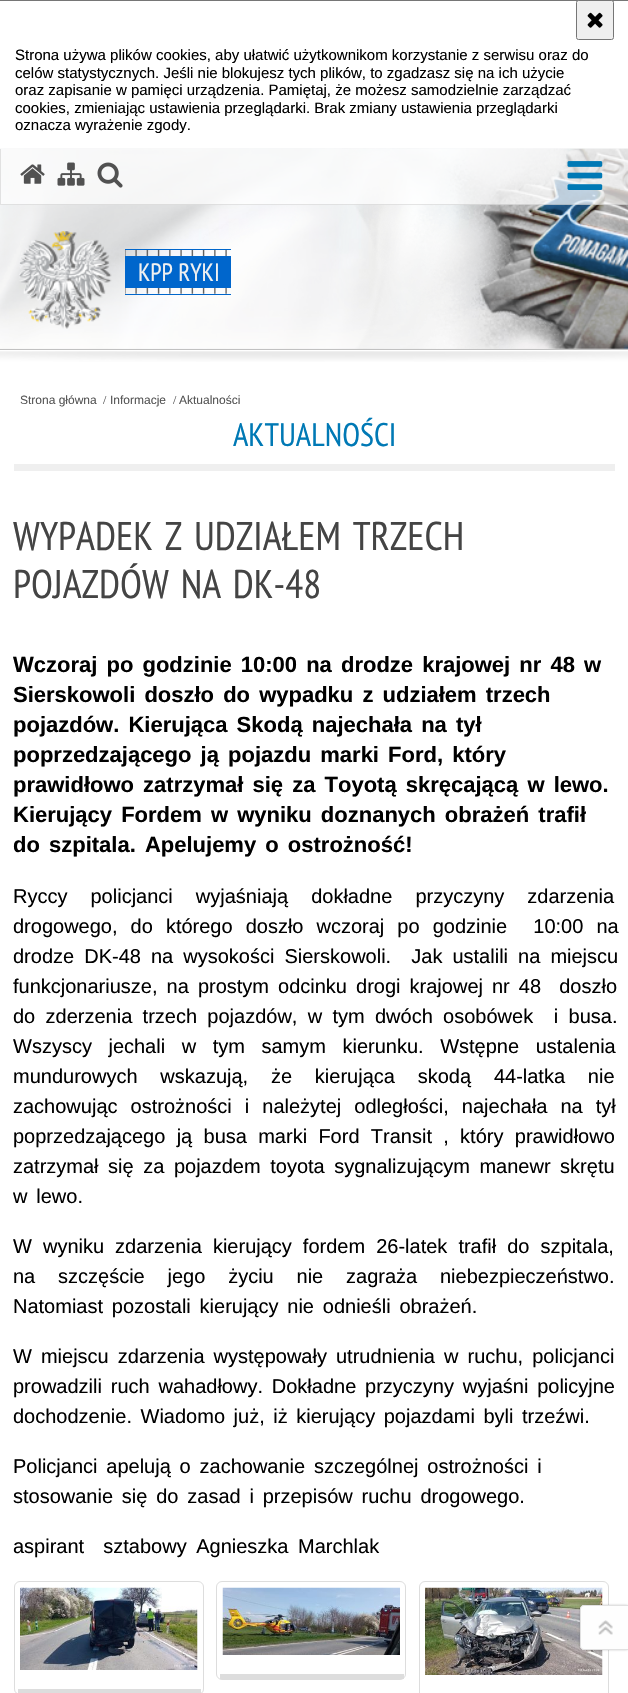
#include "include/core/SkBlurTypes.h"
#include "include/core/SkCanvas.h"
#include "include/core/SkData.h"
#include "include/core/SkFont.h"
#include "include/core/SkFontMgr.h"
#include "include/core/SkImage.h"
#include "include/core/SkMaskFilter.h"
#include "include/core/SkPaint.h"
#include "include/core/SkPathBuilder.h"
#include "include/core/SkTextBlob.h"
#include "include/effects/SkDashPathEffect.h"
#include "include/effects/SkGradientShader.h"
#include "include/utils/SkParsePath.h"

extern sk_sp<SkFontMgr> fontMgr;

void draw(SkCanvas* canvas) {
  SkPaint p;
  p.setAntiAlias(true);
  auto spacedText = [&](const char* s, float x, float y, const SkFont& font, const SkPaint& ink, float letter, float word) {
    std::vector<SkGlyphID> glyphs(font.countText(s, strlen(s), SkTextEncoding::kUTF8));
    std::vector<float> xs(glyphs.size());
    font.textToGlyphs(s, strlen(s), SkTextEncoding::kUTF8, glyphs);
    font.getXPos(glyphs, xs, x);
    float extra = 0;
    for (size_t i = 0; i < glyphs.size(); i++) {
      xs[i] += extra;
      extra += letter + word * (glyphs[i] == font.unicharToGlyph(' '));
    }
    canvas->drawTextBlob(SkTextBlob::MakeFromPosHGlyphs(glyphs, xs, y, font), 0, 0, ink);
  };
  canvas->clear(SK_ColorWHITE);
  p.setColor(SkColorSetRGB(118, 118, 118));
  canvas->drawRect(SkRect::MakeLTRB(0, 0, 628, 1), p);
  p.setColor(SkColorSetRGB(239, 239, 239));
  canvas->drawRoundRect(SkRect::MakeLTRB(576.5f, 0.5f, 613.5f, 39.5f), 2, 2, p);
  p.setStyle(SkPaint::kStroke_Style);
  p.setStrokeWidth(1);
  p.setColor(SkColorSetRGB(118, 118, 118));
  canvas->drawRoundRect(SkRect::MakeLTRB(576.5f, 0.5f, 613.5f, 39.5f), 2, 2, p);
  canvas->drawImageRect(SkImages::DeferredFromEncodedData(SkData::MakeFromFileName("images/1.png")), SkRect::MakeLTRB(587, 12, 603, 28), SkSamplingOptions());
  canvas->drawImageRect(SkImages::DeferredFromEncodedData(SkData::MakeFromFileName("images/2.png")), SkRect::MakeLTRB(0, 148, 628, 349), SkSamplingOptions());
  canvas->drawImageRect(SkImages::DeferredFromEncodedData(SkData::MakeFromFileName("images/3.png")), SkRect::MakeLTRB(0, 351, 628, 362), SkSamplingOptions());
  canvas->drawImageRect(SkImages::DeferredFromEncodedData(SkData::MakeFromFileName("images/4.png")), SkRect::MakeLTRB(0, 148, 628, 349), SkSamplingOptions());
  p.setStyle(SkPaint::kFill_Style);
  p.setColor(SkColorSetRGB(193, 193, 193));
  canvas->drawRect(SkRect::MakeLTRB(0, 349, 628, 350), p);
  p.setColor(SkColorSetARGB(179, 255, 255, 255));
  canvas->drawRect(SkRect::MakeLTRB(0, 149, 628, 205), p);
  p.setColor(SkColorSetARGB(26, 0, 0, 0));
  canvas->drawPath(SkPathBuilder().moveTo(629, 205).lineTo(0, 205).lineTo(1, 204).lineTo(628, 204).close().detach(), p);
  canvas->drawPath(SkPathBuilder().moveTo(0, 205).lineTo(0, 149).lineTo(1, 149).lineTo(1, 204).close().detach(), p);
  canvas->drawImageRect(SkImages::DeferredFromEncodedData(SkData::MakeFromFileName("images/5.png")), SkRect::MakeLTRB(20, 164, 45, 184), SkSamplingOptions());
  canvas->drawImageRect(SkImages::DeferredFromEncodedData(SkData::MakeFromFileName("images/6.png")), SkRect::MakeLTRB(57, 162, 85, 186), SkSamplingOptions());
  canvas->drawImageRect(SkImages::DeferredFromEncodedData(SkData::MakeFromFileName("images/7.png")), SkRect::MakeLTRB(97, 162, 123, 188), SkSamplingOptions());
  canvas->drawImageRect(SkImages::DeferredFromEncodedData(SkData::MakeFromFileName("images/8.png")), SkRect::MakeLTRB(567, 161, 603, 190), SkSamplingOptions());
  canvas->drawImageRect(SkImages::DeferredFromEncodedData(SkData::MakeFromFileName("images/9.png")), SkRect::MakeLTRB(125, 250, 227, 294), SkSamplingOptions());
  p.setColor(SkColorSetRGB(0, 102, 204));
  canvas->drawRect(SkRect::MakeLTRB(125, 249, 231, 250), p);
  canvas->drawRect(SkRect::MakeLTRB(125, 294, 231, 295), p);
  canvas->drawImageRect(SkImages::DeferredFromEncodedData(SkData::MakeFromFileName("images/10.png")), SkRect::MakeLTRB(19, 231, 112, 329), SkSamplingOptions());
  canvas->drawRect(SkRect::MakeLTRB(125, 256, 231, 288), p);
  p.setColor(SkColorSetRGB(239, 239, 239));
  canvas->drawRect(SkRect::MakeLTRB(14, 464, 615, 471), p);
  p.setStyle(SkPaint::kStroke_Style);
  p.setColor(SkColorSetRGB(221, 221, 221));
  canvas->drawRoundRect(SkRect::MakeLTRB(14.5f, 1581.5f, 203.5f, 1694.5f), 5.5f, 5.5f, p);
  p.setStyle(SkPaint::kFill_Style);
  canvas->drawRect(SkRect::MakeLTRB(18, 1689, 201, 1693), p);
  canvas->drawImageRect(SkImages::DeferredFromEncodedData(SkData::MakeFromFileName("images/11.png")), SkRect::MakeLTRB(20, 1587, 198, 1670), SkSamplingOptions());
  p.setStyle(SkPaint::kStroke_Style);
  canvas->drawRoundRect(SkRect::MakeLTRB(216.5f, 1581.5f, 405.5f, 1679.5f), 5.5f, 5.5f, p);
  p.setStyle(SkPaint::kFill_Style);
  canvas->drawRect(SkRect::MakeLTRB(220, 1674, 404, 1679), p);
  canvas->drawImageRect(SkImages::DeferredFromEncodedData(SkData::MakeFromFileName("images/12.png")), SkRect::MakeLTRB(222, 1587, 400, 1655), SkSamplingOptions());
  p.setStyle(SkPaint::kStroke_Style);
  canvas->drawRoundRect(SkRect::MakeLTRB(419.5f, 1581.5f, 608.5f, 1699.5f), 5.5f, 5.5f, p);
  canvas->drawImageRect(SkImages::DeferredFromEncodedData(SkData::MakeFromFileName("images/13.png")), SkRect::MakeLTRB(425, 1587, 603, 1675), SkSamplingOptions());
  p.setStyle(SkPaint::kFill_Style);
  p.setColor(SkColorSetARGB(64, 0, 0, 0));
  p.setMaskFilter(SkMaskFilter::MakeBlur(kNormal_SkBlurStyle, 1));
  canvas->drawRoundRect(SkRect::MakeLTRB(580, 1605, 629, 1650), 4, 4, p);
  p.setMaskFilter(nullptr);
  p.setColor(SkColorSetRGB(254, 254, 254));
  canvas->drawPath(SkPathBuilder().moveTo(584, 1605).lineTo(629, 1605).lineTo(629, 1650).lineTo(584, 1650).cubicTo(582, 1650, 580, 1648, 580, 1646).lineTo(580, 1609).cubicTo(580, 1607, 582, 1605, 584, 1605).close().detach(), p);
  p.setColor(SkColorSetRGB(225, 225, 225));
  canvas->drawPath(SkPathBuilder(SkPathFillType::kEvenOdd).moveTo(584, 1605).lineTo(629, 1605).lineTo(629, 1650).lineTo(584, 1650).cubicTo(582, 1650, 580, 1648, 580, 1646).lineTo(580, 1609).cubicTo(580, 1607, 582, 1605, 584, 1605).close().moveTo(584, 1606).lineTo(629, 1606).lineTo(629, 1649).lineTo(584, 1649).cubicTo(582, 1649, 581, 1648, 581, 1646).lineTo(581, 1609).cubicTo(581, 1607, 582, 1606, 584, 1606).close().detach(), p);
  canvas->drawImageRect(SkImages::DeferredFromEncodedData(SkData::MakeFromFileName("images/14.png")), SkRect::MakeLTRB(598, 1620, 613, 1635), SkSamplingOptions());
  SkFont font1(fontMgr->matchFamilyStyle("Liberation Sans", SkFontStyle::Normal()), 15);
  font1.setSubpixel(true);
  p.setColor(SK_ColorBLACK);
  canvas->drawString("Strona używa plików cookies, aby ułatwić użytkownikom korzystanie z serwisu oraz do", 15, 60, font1, p);
  canvas->drawString("celów statystycznych. Jeśli nie blokujesz tych plików, to zgadzasz się na ich użycie", 15, 78, font1, p);
  canvas->drawString("oraz zapisanie w pamięci urządzenia. Pamiętaj, że możesz samodzielnie zarządzać", 15, 95, font1, p);
  canvas->drawString("cookies, zmieniając ustawienia przeglądarki. Brak zmiany ustawienia przeglądarki", 15, 113, font1, p);
  canvas->drawString("oznacza wyrażenie zgody.", 15, 130, font1, p);
  SkFont font2(fontMgr->matchFamilyStyle("PT Sans Narrow", SkFontStyle::Normal()), 25);
  font2.setSubpixel(true);
  p.setColor(SkColorSetRGB(241, 241, 241));
  canvas->drawString("KPP RYKI", 138, 281, font2, p);
  SkFont font3(fontMgr->matchFamilyStyle("Liberation Sans", SkFontStyle::Normal()), 12);
  font3.setSubpixel(true);
  p.setColor(SkColorSetRGB(85, 85, 85));
  canvas->drawString("Strona główna", 20, 404, font3, p);
  SkFont font4(fontMgr->matchFamilyStyle("Liberation Serif", SkFontStyle::Normal()), 12);
  font4.setSubpixel(true);
  canvas->drawString("/", 103, 404, font4, p);
  canvas->drawString("Informacje", 110, 404, font3, p);
  canvas->drawString("/", 173, 404, font4, p);
  canvas->drawString("Aktualności", 179, 404, font3, p);
  SkFont font5(fontMgr->matchFamilyStyle("PT Sans Narrow", SkFontStyle::Normal()), 32.5f);
  font5.setSubpixel(true);
  p.setColor(SkColorSetRGB(0, 121, 181));
  canvas->drawString("AKTUALNOŚCI", 233, 446, font5, p);
  SkFont font6(fontMgr->matchFamilyStyle("PT Sans Narrow", SkFontStyle::Normal()), 40);
  font6.setSubpixel(true);
  p.setColor(SkColorSetRGB(68, 68, 68));
  spacedText("WYPADEK Z UDZIAŁEM TRZECH", 13, 550, font6, p, 0, 3.25f);
  spacedText("POJAZDÓW NA DK-48", 13, 598, font6, p, 0, 3.25f);
  SkFont font7(fontMgr->matchFamilyStyle("Liberation Sans", SkFontStyle::Bold()), 22);
  font7.setSubpixel(true);
  p.setColor(SK_ColorBLACK);
  spacedText("Wczoraj po godzinie 10:00 na drodze krajowej nr 48 w", 13, 672, font7, p, 0, 3);
  spacedText("Sierskowoli doszło do wypadku z udziałem trzech", 13, 702, font7, p, 0, 3);
  spacedText("pojazdów. Kierująca Skodą najechała na tył", 13, 732, font7, p, 0, 3);
  spacedText("poprzedzającego ją pojazdu marki Ford, który", 13, 762, font7, p, 0, 3);
  spacedText("prawidłowo zatrzymał się za Toyotą skręcającą w lewo.", 13, 792, font7, p, 0, 3);
  spacedText("Kierujący Fordem w wyniku doznanych obrażeń trafił", 13, 822, font7, p, 0, 3);
  spacedText("do szpitala. Apelujemy o ostrożność!", 13, 852, font7, p, 0, 3);
  SkFont font8(fontMgr->matchFamilyStyle("Liberation Sans", SkFontStyle::Normal()), 20);
  font8.setSubpixel(true);
  spacedText("Ryccy policjanci wyjaśniają dokładne przyczyny zdarzenia", 13, 903, font8, p, 0, 17.5f);
  spacedText("drogowego, do którego doszło wczoraj po godzinie  10:00 na", 13, 933, font8, p, 0, 7.5f);
  spacedText("drodze DK-48 na wysokości Sierskowoli.  Jak ustalili na miejscu", 13, 963, font8, p, 0, 4.5f);
  spacedText("funkcjonariusze, na prostym odcinku drogi krajowej nr 48  doszło", 13, 993, font8, p, 0, 3.5f);
  spacedText("do zderzenia trzech pojazdów, w tym dwóch osobówek  i busa.", 13, 1023, font8, p, 0, 4.75f);
  spacedText("Wszyscy jechali w tym samym kierunku. Wstępne ustalenia", 13, 1053, font8, p, 0, 11);
  spacedText("mundurowych wskazują, że kierująca skodą 44-latka nie", 13, 1083, font8, p, 0, 17.25f);
  spacedText("zachowując ostrożności i należytej odległości, najechała na tył", 13, 1113, font8, p, 0, 7.5f);
  spacedText("poprzedzającego ją busa marki Ford Transit , który prawidłowo", 13, 1143, font8, p, 0, 5.75f);
  spacedText("zatrzymał się za pojazdem toyota sygnalizującym manewr skrętu", 13, 1173, font8, p, 0, 4);
  spacedText("w lewo.", 13, 1203, font8, p, 0, 3.25f);
  spacedText("W wyniku zdarzenia kierujący fordem 26-latek trafił do szpitala,", 13, 1253, font8, p, 0, 5.5f);
  spacedText("na szczęście jego życiu nie zagraża niebezpieczeństwo.", 13, 1283, font8, p, 0, 17.25f);
  spacedText("Natomiast pozostali kierujący nie odnieśli obrażeń.", 13, 1313, font8, p, 0, 3.25f);
  spacedText("W miejscu zdarzenia występowały utrudnienia w ruchu, policjanci", 13, 1363, font8, p, 0, 3.5f);
  spacedText("prowadzili ruch wahadłowy. Dokładne przyczyny wyjaśni policyjne", 13, 1393, font8, p, 0, 3.25f);
  spacedText("dochodzenie. Wiadomo już, iż kierujący pojazdami byli trzeźwi.", 13, 1423, font8, p, 0, 3);
  spacedText("Policjanci apelują o zachowanie szczególnej ostrożności i", 13, 1473, font8, p, 0, 3.25f);
  spacedText("stosowanie się do zasad i przepisów ruchu drogowego.", 13, 1503, font8, p, 0, 3.25f);
  spacedText("aspirant  sztabowy Agnieszka Marchlak", 13, 1553, font8, p, 0, 4);
}
